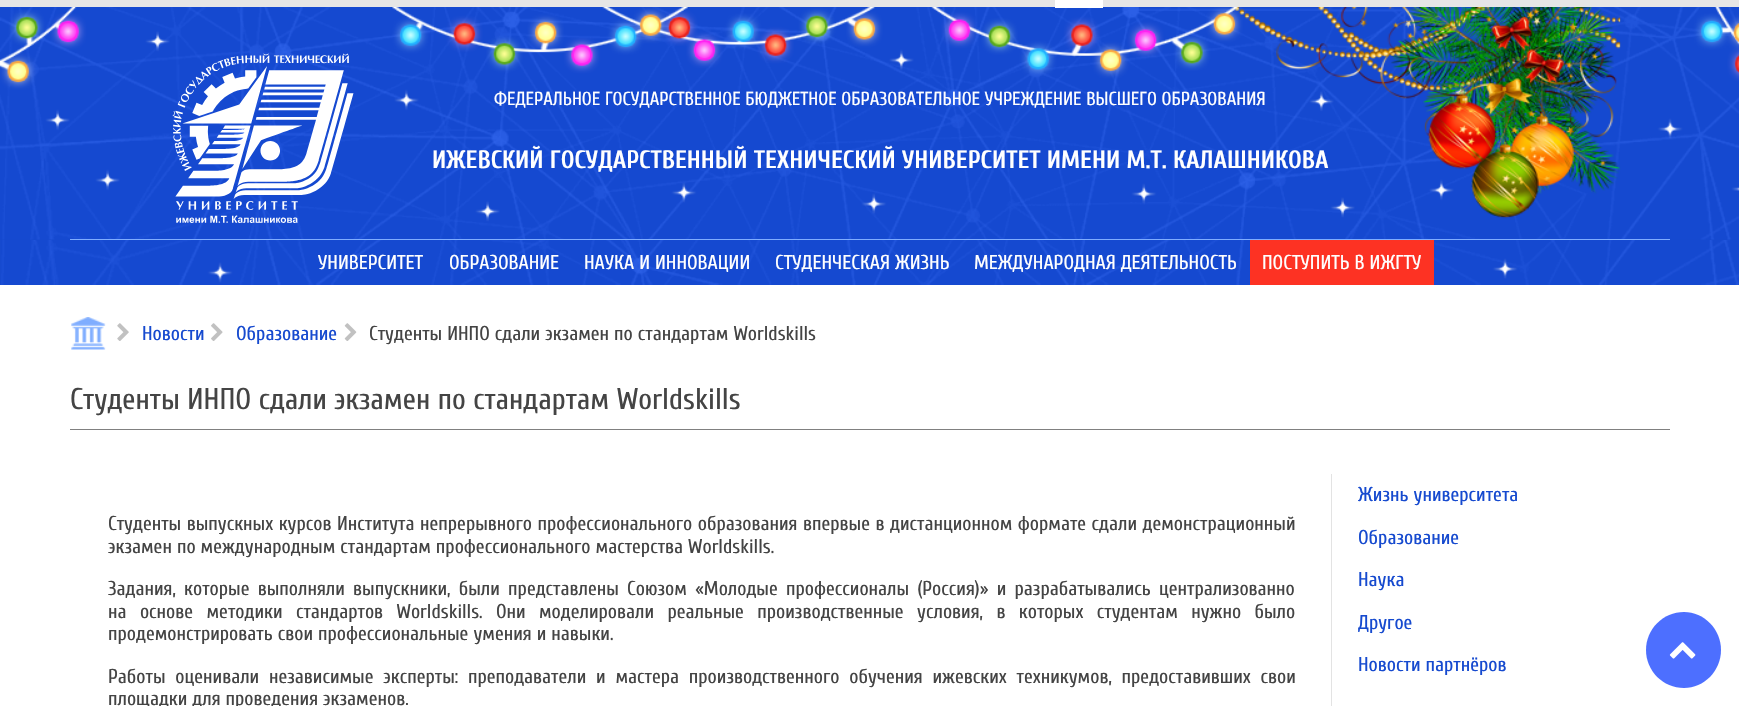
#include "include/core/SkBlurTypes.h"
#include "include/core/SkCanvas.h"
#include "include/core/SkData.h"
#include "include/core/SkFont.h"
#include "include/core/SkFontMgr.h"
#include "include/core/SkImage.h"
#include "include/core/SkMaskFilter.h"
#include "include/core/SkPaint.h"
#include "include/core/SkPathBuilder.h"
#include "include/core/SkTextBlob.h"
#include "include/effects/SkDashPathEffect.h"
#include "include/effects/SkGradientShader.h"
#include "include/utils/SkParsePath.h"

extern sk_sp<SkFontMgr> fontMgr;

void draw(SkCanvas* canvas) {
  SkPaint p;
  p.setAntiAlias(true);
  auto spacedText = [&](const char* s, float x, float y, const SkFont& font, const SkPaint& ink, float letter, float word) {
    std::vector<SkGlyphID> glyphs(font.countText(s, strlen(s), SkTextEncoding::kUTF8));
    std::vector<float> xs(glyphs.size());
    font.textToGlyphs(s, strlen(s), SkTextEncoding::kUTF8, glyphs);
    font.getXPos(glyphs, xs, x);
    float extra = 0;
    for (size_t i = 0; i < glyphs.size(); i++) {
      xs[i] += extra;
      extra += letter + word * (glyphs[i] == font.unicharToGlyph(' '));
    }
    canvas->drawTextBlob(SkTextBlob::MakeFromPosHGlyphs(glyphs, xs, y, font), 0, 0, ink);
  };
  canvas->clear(SK_ColorWHITE);
  p.setColor(SkColorSetRGB(230, 230, 230));
  canvas->drawRect(SkRect::MakeLTRB(0, 0, 1739, 7), p);
  p.setColor(SkColorSetRGB(22, 74, 207));
  canvas->drawRect(SkRect::MakeLTRB(0, 239, 1739, 240), p);
  canvas->drawImageRect(SkImages::DeferredFromEncodedData(SkData::MakeFromFileName("images/1.png")), SkRect::MakeLTRB(0, 7, 1739, 240), SkSamplingOptions());
  p.setColor(SK_ColorWHITE);
  canvas->drawRect(SkRect::MakeLTRB(1055, 0, 1103, 8), p);
  p.setColor(SkColorSetRGB(127, 173, 255));
  canvas->drawRect(SkRect::MakeLTRB(70, 239, 1670, 240), p);
  canvas->drawImageRect(SkImages::DeferredFromEncodedData(SkData::MakeFromFileName("images/2.png")), SkRect::MakeLTRB(172, 53, 354, 223), SkSamplingOptions());
  p.setColor(SkColorSetRGB(22, 74, 207));
  canvas->drawRect(SkRect::MakeLTRB(0, 240, 1, 285), p);
  canvas->drawImageRect(SkImages::DeferredFromEncodedData(SkData::MakeFromFileName("images/3.png")), SkRect::MakeLTRB(1, 240, 1739, 285), SkSamplingOptions());
  p.setColor(SkColorSetRGB(253, 50, 35));
  canvas->drawRect(SkRect::MakeLTRB(1250, 240, 1434, 285), p);
  canvas->drawImageRect(SkImages::DeferredFromEncodedData(SkData::MakeFromFileName("images/4.png")), SkRect::MakeLTRB(71, 317, 106, 350), SkSamplingOptions());
  canvas->drawImageRect(SkImages::DeferredFromEncodedData(SkData::MakeFromFileName("images/5.png")), SkRect::MakeLTRB(117, 323, 129, 341), SkSamplingOptions());
  canvas->drawImageRect(SkImages::DeferredFromEncodedData(SkData::MakeFromFileName("images/6.png")), SkRect::MakeLTRB(211, 323, 223, 341), SkSamplingOptions());
  canvas->drawImageRect(SkImages::DeferredFromEncodedData(SkData::MakeFromFileName("images/7.png")), SkRect::MakeLTRB(344, 323, 357, 341), SkSamplingOptions());
  p.setColor(SkColorSetRGB(128, 128, 128));
  canvas->drawRect(SkRect::MakeLTRB(70, 429, 1670, 430), p);
  p.setColor(SkColorSetRGB(227, 227, 227));
  canvas->drawRect(SkRect::MakeLTRB(1331, 474, 1332, 706), p);
  p.setColor(SkColorSetRGB(77, 111, 255));
  canvas->drawPath(SkPathBuilder().moveTo(1646, 650).cubicTo(1646, 629, 1663, 612, 1684, 612).cubicTo(1704, 612, 1721, 629, 1721, 650).cubicTo(1721, 671, 1704, 688, 1684, 688).cubicTo(1663, 688, 1646, 671, 1646, 650).close().detach(), p);
  canvas->drawImageRect(SkImages::DeferredFromEncodedData(SkData::MakeFromFileName("images/8.png")), SkRect::MakeLTRB(1669, 642, 1696, 659), SkSamplingOptions());
  SkFont font1(fontMgr->matchFamilyStyle("Cuprum", SkFontStyle::Normal()), 18.75f);
  font1.setSubpixel(true);
  p.setColor(SK_ColorWHITE);
  canvas->drawString("ФЕДЕРАЛЬНОЕ ГОСУДАРСТВЕННОЕ БЮДЖЕТНОЕ ОБРАЗОВАТЕЛЬНОЕ УЧРЕЖДЕНИЕ ВЫСШЕГО ОБРАЗОВАНИЯ", 494, 105, font1, p);
  SkFont font2(fontMgr->matchFamilyStyle("Cuprum", SkFontStyle::Bold()), 25);
  font2.setSubpixel(true);
  canvas->drawString("ИЖЕВСКИЙ ГОСУДАРСТВЕННЫЙ ТЕХНИЧЕСКИЙ УНИВЕРСИТЕТ ИМЕНИ М.Т. КАЛАШНИКОВА", 432, 168, font2, p);
  SkFont font3(fontMgr->matchFamilyStyle("Cuprum", SkFontStyle::Normal()), 20);
  font3.setSubpixel(true);
  canvas->drawString("УНИВЕРСИТЕТ", 318, 269, font3, p);
  canvas->drawString("ОБРАЗОВАНИЕ", 449, 269, font3, p);
  canvas->drawString("НАУКА И ИННОВАЦИИ", 584, 269, font3, p);
  canvas->drawString("СТУДЕНЧЕСКАЯ ЖИЗНЬ", 775, 269, font3, p);
  canvas->drawString("МЕЖДУНАРОДНАЯ ДЕЯТЕЛЬНОСТЬ", 974, 269, font3, p);
  canvas->drawString("ПОСТУПИТЬ В ИЖГТУ", 1262, 269, font3, p);
  p.setColor(SkColorSetRGB(22, 74, 207));
  canvas->drawString("Новости", 142, 340, font3, p);
  canvas->drawString("Образование", 236, 340, font3, p);
  p.setColor(SkColorSetRGB(68, 68, 68));
  canvas->drawString("Студенты ИНПО сдали экзамен по стандартам Worldskills", 369, 340, font3, p);
  SkFont font4(fontMgr->matchFamilyStyle("Cuprum", SkFontStyle::Normal()), 30);
  font4.setSubpixel(true);
  canvas->drawString("Студенты ИНПО сдали экзамен по стандартам Worldskills", 70, 409, font4, p);
  spacedText("Студенты выпускных курсов Института непрерывного профессионального образования впервые в дистанционном формате сдали демонстрационный", 108, 530, font3, p, 0, 0.5f);
  canvas->drawString("экзамен по международным стандартам профессионального мастерства Worldskills.", 108, 553, font3, p);
  spacedText("Задания, которые выполняли выпускники, были представлены Союзом «Молодые профессионалы (Россия)» и разрабатывались централизованно", 108, 595, font3, p, 0, 3.25f);
  spacedText("на основе методики стандартов Worldskills. Они моделировали реальные производственные условия, в которых студентам нужно было", 108, 618, font3, p, 0, 8.4f);
  canvas->drawString("продемонстрировать свои профессиональные умения и навыки.", 108, 640, font3, p);
  spacedText("Работы оценивали независимые эксперты: преподаватели и мастера производственного обучения ижевских техникумов, предоставивших свои", 108, 683, font3, p, 0, 4.75f);
  canvas->drawString("площадки для проведения экзаменов.", 108, 705, font3, p);
  p.setColor(SkColorSetRGB(22, 74, 207));
  canvas->drawString("Жизнь университета", 1358, 501, font3, p);
  canvas->drawString("Образование", 1358, 544, font3, p);
  canvas->drawString("Наука", 1358, 586, font3, p);
  canvas->drawString("Другое", 1358, 629, font3, p);
  canvas->drawString("Новости партнёров", 1358, 671, font3, p);
}
